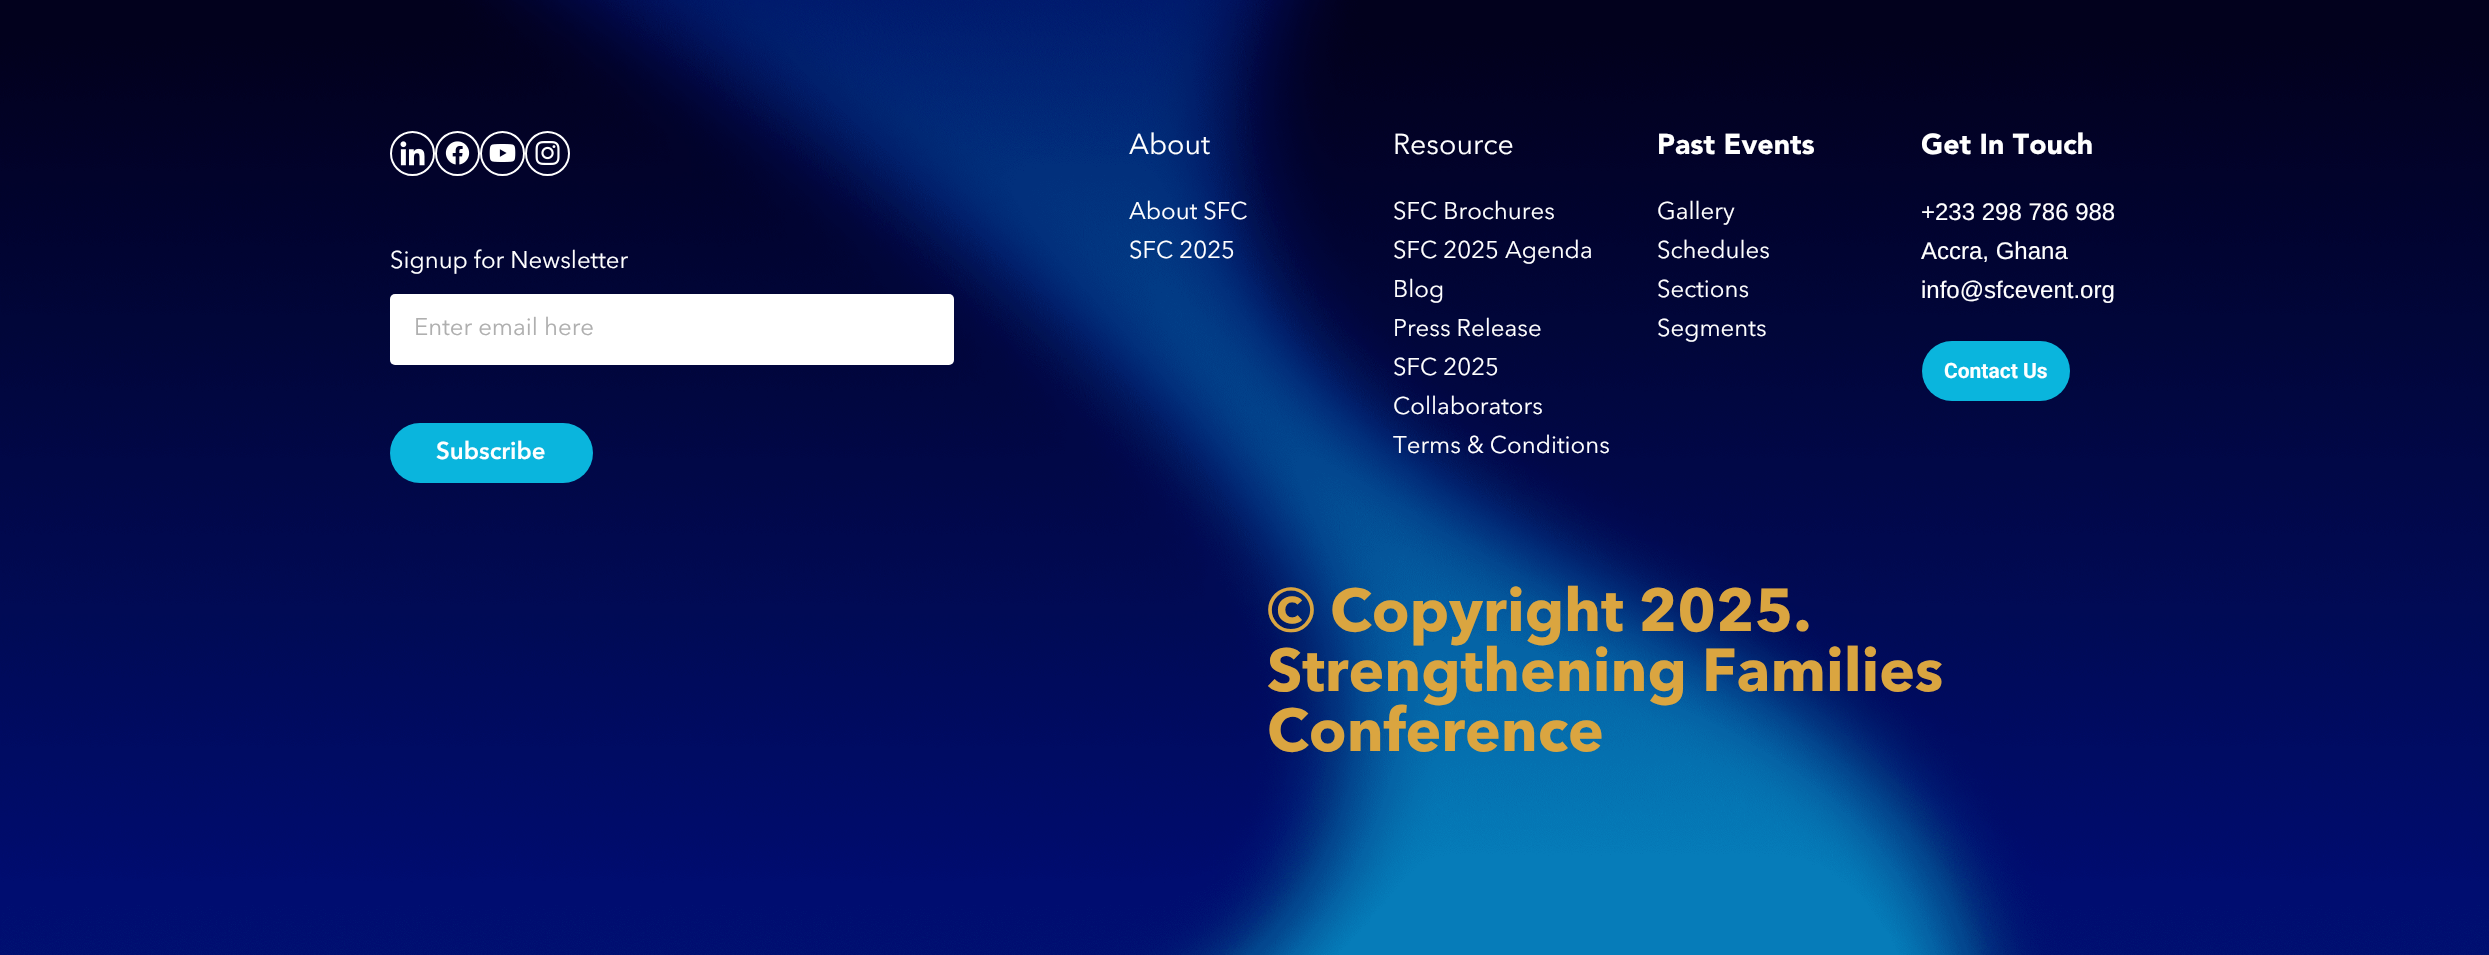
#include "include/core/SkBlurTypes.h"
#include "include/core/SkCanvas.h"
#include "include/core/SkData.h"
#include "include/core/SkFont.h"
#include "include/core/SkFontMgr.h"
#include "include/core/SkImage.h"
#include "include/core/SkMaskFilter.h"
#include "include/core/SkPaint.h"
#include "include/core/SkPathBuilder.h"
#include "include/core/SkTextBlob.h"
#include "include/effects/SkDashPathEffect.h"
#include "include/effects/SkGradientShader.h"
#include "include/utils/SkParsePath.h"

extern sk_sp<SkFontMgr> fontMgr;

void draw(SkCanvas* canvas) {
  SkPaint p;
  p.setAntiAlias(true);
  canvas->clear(SK_ColorWHITE);
  canvas->drawImageRect(SkImages::DeferredFromEncodedData(SkData::MakeFromFileName("images/1.png")), SkRect::MakeLTRB(0, 0, 2489, 955), SkSamplingOptions());
  p.setStyle(SkPaint::kStroke_Style);
  p.setStrokeWidth(2);
  p.setColor(SK_ColorWHITE);
  canvas->drawCircle(412.5f, 153.5f, 21.5f, p);
  canvas->drawImageRect(SkImages::DeferredFromEncodedData(SkData::MakeFromFileName("images/2.png")), SkRect::MakeLTRB(400, 141, 425, 166), SkSamplingOptions());
  canvas->drawCircle(457.5f, 153.5f, 21.5f, p);
  canvas->drawImageRect(SkImages::DeferredFromEncodedData(SkData::MakeFromFileName("images/3.png")), SkRect::MakeLTRB(445, 141, 470, 165), SkSamplingOptions());
  canvas->drawCircle(502.5f, 153.5f, 21.5f, p);
  canvas->drawImageRect(SkImages::DeferredFromEncodedData(SkData::MakeFromFileName("images/4.png")), SkRect::MakeLTRB(489, 144, 516, 162), SkSamplingOptions());
  canvas->drawCircle(547.5f, 153.5f, 21.5f, p);
  canvas->drawImageRect(SkImages::DeferredFromEncodedData(SkData::MakeFromFileName("images/5.png")), SkRect::MakeLTRB(535, 141, 560, 165), SkSamplingOptions());
  p.setStyle(SkPaint::kFill_Style);
  canvas->drawRoundRect(SkRect::MakeLTRB(390, 294, 954, 365), 5, 5, p);
  p.setColor(SkColorSetRGB(10, 181, 221));
  canvas->drawRoundRect(SkRect::MakeLTRB(390, 423, 593, 483), 30, 30, p);
  canvas->drawRoundRect(SkRect::MakeLTRB(1922, 341, 2070, 401), 30, 30, p);
  SkFont font1(fontMgr->matchFamilyStyle("Avenir Next", SkFontStyle::Normal()), 24);
  font1.setSubpixel(true);
  p.setColor(SK_ColorWHITE);
  canvas->drawString("Signup for Newsletter", 390, 268, font1, p);
  p.setColor(SkColorSetRGB(175, 175, 175));
  canvas->drawString("Enter email here", 414, 335, font1, p);
  SkFont font2(fontMgr->matchFamilyStyle("Avenir Next", SkFontStyle(600, SkFontStyle::kNormal_Width, SkFontStyle::kUpright_Slant)), 24);
  font2.setSubpixel(true);
  p.setColor(SK_ColorWHITE);
  canvas->drawString("Subscribe", 436, 459, font2, p);
  SkFont font3(fontMgr->matchFamilyStyle("Avenir Next", SkFontStyle::Normal()), 28.5f);
  font3.setSubpixel(true);
  canvas->drawString("About", 1129, 154, font3, p);
  canvas->drawString("About SFC", 1129, 219, font1, p);
  canvas->drawString("SFC 2025", 1129, 258, font1, p);
  canvas->drawString("Resource", 1393, 154, font3, p);
  canvas->drawString("SFC Brochures", 1393, 219, font1, p);
  canvas->drawString("SFC 2025 Agenda", 1393, 258, font1, p);
  canvas->drawString("Blog", 1393, 297, font1, p);
  canvas->drawString("Press Release", 1393, 336, font1, p);
  canvas->drawString("SFC 2025", 1393, 375, font1, p);
  canvas->drawString("Collaborators", 1393, 414, font1, p);
  canvas->drawString("Terms & Conditions", 1393, 453, font1, p);
  SkFont font4(fontMgr->matchFamilyStyle("Avenir", SkFontStyle(900, SkFontStyle::kNormal_Width, SkFontStyle::kUpright_Slant)), 28.5f);
  font4.setSubpixel(true);
  canvas->drawString("Past Events", 1657, 154, font4, p);
  canvas->drawString("Gallery", 1657, 219, font1, p);
  canvas->drawString("Schedules", 1657, 258, font1, p);
  canvas->drawString("Sections", 1657, 297, font1, p);
  canvas->drawString("Segments", 1657, 336, font1, p);
  canvas->drawString("Get In Touch", 1921, 154, font4, p);
  SkFont font5(fontMgr->matchFamilyStyle("Liberation Sans", SkFontStyle::Normal()), 24);
  font5.setSubpixel(true);
  canvas->drawString("+233 298 786 988", 1921, 220, font5, p);
  canvas->drawString("Accra, Ghana", 1921, 259, font5, p);
  canvas->drawString("info@sfcevent.org", 1921, 298, font5, p);
  SkFont font6(fontMgr->matchFamilyStyle("Roboto", SkFontStyle::Bold()), 21);
  font6.setSubpixel(true);
  canvas->drawString("Contact Us", 1944, 378, font6, p);
  SkFont font7(fontMgr->matchFamilyStyle("Avenir Next", SkFontStyle::Bold()), 60);
  font7.setSubpixel(true);
  p.setColor(SkColorSetRGB(218, 165, 64));
  canvas->drawString("© Copyright 2025.", 1267, 631, font7, p);
  canvas->drawString("Strengthening Families", 1267, 691, font7, p);
  canvas->drawString("Conference", 1267, 751, font7, p);
}
